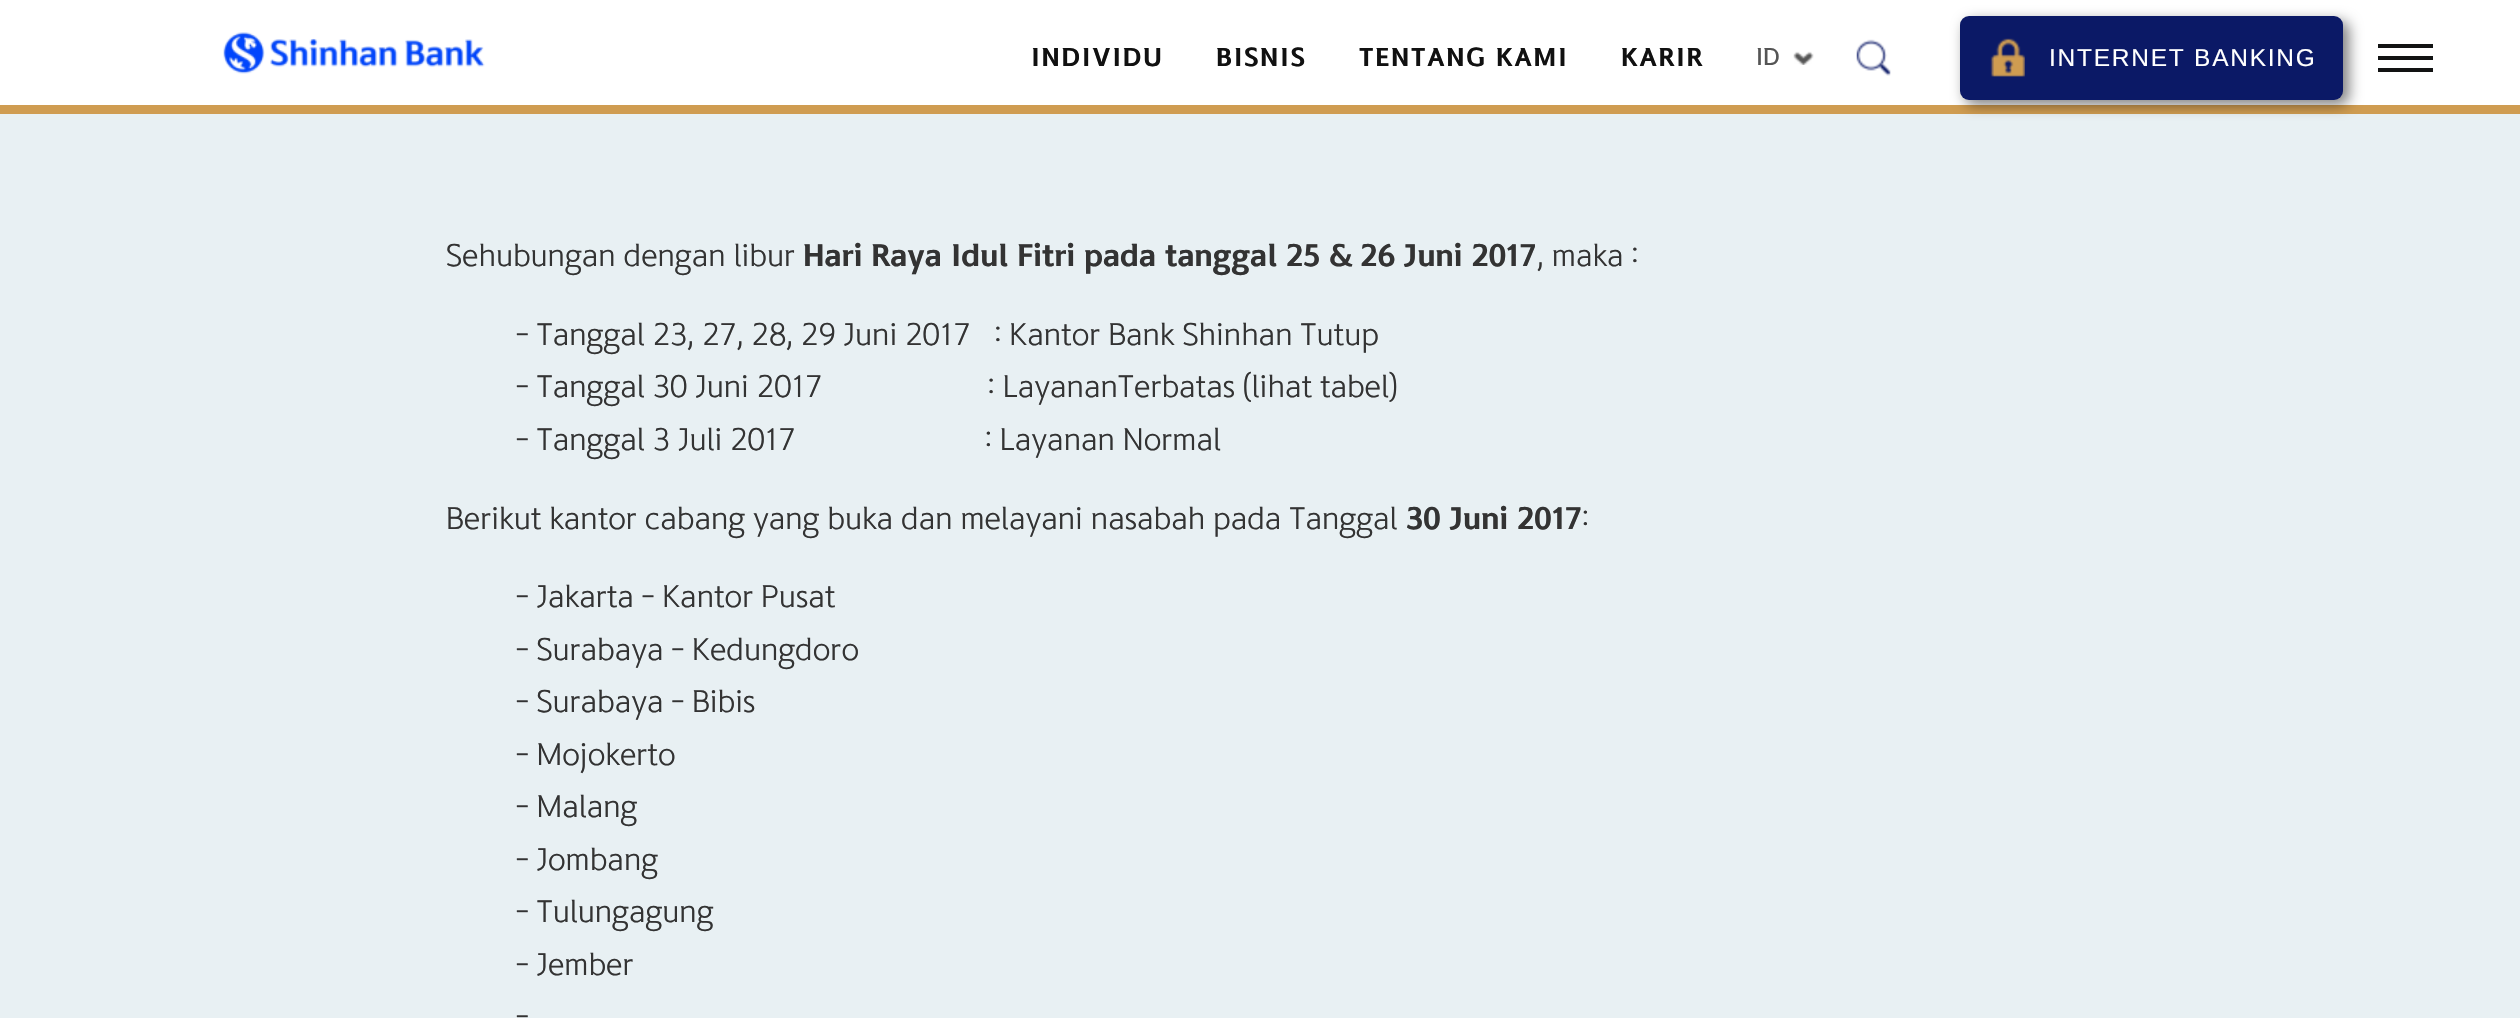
#include "include/core/SkBlurTypes.h"
#include "include/core/SkCanvas.h"
#include "include/core/SkData.h"
#include "include/core/SkFont.h"
#include "include/core/SkFontMgr.h"
#include "include/core/SkImage.h"
#include "include/core/SkMaskFilter.h"
#include "include/core/SkPaint.h"
#include "include/core/SkPathBuilder.h"
#include "include/core/SkTextBlob.h"
#include "include/effects/SkDashPathEffect.h"
#include "include/effects/SkGradientShader.h"
#include "include/utils/SkParsePath.h"

extern sk_sp<SkFontMgr> fontMgr;

void draw(SkCanvas* canvas) {
  SkPaint p;
  p.setAntiAlias(true);
  auto spacedText = [&](const char* s, float x, float y, const SkFont& font, const SkPaint& ink, float letter, float word) {
    std::vector<SkGlyphID> glyphs(font.countText(s, strlen(s), SkTextEncoding::kUTF8));
    std::vector<float> xs(glyphs.size());
    font.textToGlyphs(s, strlen(s), SkTextEncoding::kUTF8, glyphs);
    font.getXPos(glyphs, xs, x);
    float extra = 0;
    for (size_t i = 0; i < glyphs.size(); i++) {
      xs[i] += extra;
      extra += letter + word * (glyphs[i] == font.unicharToGlyph(' '));
    }
    canvas->drawTextBlob(SkTextBlob::MakeFromPosHGlyphs(glyphs, xs, y, font), 0, 0, ink);
  };
  canvas->clear(SkColorSetRGB(232, 240, 243));
  p.setColor(SK_ColorWHITE);
  canvas->drawRect(SkRect::MakeLTRB(0, 0, 2520, 105), p);
  canvas->drawImageRect(SkImages::DeferredFromEncodedData(SkData::MakeFromFileName("images/1.png")), SkRect::MakeLTRB(223, 32, 485, 74), SkSamplingOptions());
  canvas->drawImageRect(SkImages::DeferredFromEncodedData(SkData::MakeFromFileName("images/2.png")), SkRect::MakeLTRB(1793, 51, 1814, 65), SkSamplingOptions());
  canvas->drawImageRect(SkImages::DeferredFromEncodedData(SkData::MakeFromFileName("images/3.png")), SkRect::MakeLTRB(1856, 39, 1891, 76), SkSamplingOptions());
  p.setColor(SkColorSetRGB(207, 156, 81));
  canvas->drawRect(SkRect::MakeLTRB(0, 105, 2520, 114), p);
  p.setColor(SkColorSetARGB(128, 0, 0, 0));
  p.setMaskFilter(SkMaskFilter::MakeBlur(kNormal_SkBlurStyle, 7));
  canvas->drawRoundRect(SkRect::MakeLTRB(1965, 21, 2349, 105), 9, 9, p);
  p.setMaskFilter(nullptr);
  p.setColor(SkColorSetRGB(11, 25, 102));
  canvas->drawRoundRect(SkRect::MakeLTRB(1960, 16, 2343, 100), 9, 9, p);
  canvas->drawImageRect(SkImages::DeferredFromEncodedData(SkData::MakeFromFileName("images/4.png")), SkRect::MakeLTRB(1990, 38, 2025, 77), SkSamplingOptions());
  p.setColor(SkColorSetRGB(18, 19, 19));
  canvas->drawRect(SkRect::MakeLTRB(2378, 44, 2433, 48), p);
  canvas->drawRect(SkRect::MakeLTRB(2378, 56, 2433, 60), p);
  canvas->drawRect(SkRect::MakeLTRB(2378, 68, 2433, 72), p);
  SkFont font1(fontMgr->matchFamilyStyle("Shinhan", SkFontStyle::Bold()), 26.25f);
  font1.setSubpixel(true);
  p.setColor(SkColorSetRGB(17, 17, 17));
  spacedText("INDIVIDU", 1031, 66, font1, p, 1.75f, 0);
  spacedText("BISNIS", 1216, 66, font1, p, 1.75f, 0);
  spacedText("TENTANG KAMI", 1359, 66, font1, p, 1.75f, 0);
  spacedText("KARIR", 1621, 66, font1, p, 1.75f, 0);
  SkFont font2(fontMgr->matchFamilyStyle("Shinhan", SkFontStyle(500, SkFontStyle::kNormal_Width, SkFontStyle::kUpright_Slant)), 24.5f);
  font2.setSubpixel(true);
  p.setColor(SkColorSetRGB(85, 85, 85));
  canvas->drawString("ID", 1756, 65, font2, p);
  SkFont font3(fontMgr->matchFamilyStyle("Liberation Sans", SkFontStyle::Normal()), 24.5f);
  font3.setSubpixel(true);
  p.setColor(SK_ColorWHITE);
  spacedText("INTERNET BANKING", 2049, 66, font3, p, 1.75f, 0);
  SkFont font4(fontMgr->matchFamilyStyle("Shinhan", SkFontStyle(300, SkFontStyle::kNormal_Width, SkFontStyle::kUpright_Slant)), 31.5f);
  font4.setSubpixel(true);
  p.setColor(SkColorSetRGB(51, 51, 51));
  canvas->drawString("Sehubungan dengan libur", 446, 266, font4, p);
  SkFont font5(fontMgr->matchFamilyStyle("Shinhan", SkFontStyle::Bold()), 31.5f);
  font5.setSubpixel(true);
  canvas->drawString("Hari Raya Idul Fitri pada tanggal 25 & 26 Juni 2017", 803, 266, font5, p);
  canvas->drawString(", maka :", 1537, 266, font4, p);
  canvas->drawString("- Tanggal 23, 27, 28, 29 Juni 2017   : Kantor Bank Shinhan Tutup", 516, 345, font4, p);
  canvas->drawString("- Tanggal 30 Juni 2017                     : LayananTerbatas (lihat tabel)", 516, 397, font4, p);
  canvas->drawString("- Tanggal 3 Juli 2017                        : Layanan Normal", 516, 450, font4, p);
  canvas->drawString("Berikut kantor cabang yang buka dan melayani nasabah pada Tanggal", 446, 529, font4, p);
  canvas->drawString("30 Juni 2017", 1406, 529, font5, p);
  canvas->drawString(":", 1582, 529, font4, p);
  canvas->drawString("- Jakarta - Kantor Pusat", 516, 607, font4, p);
  canvas->drawString("- Surabaya - Kedungdoro", 516, 660, font4, p);
  canvas->drawString("- Surabaya - Bibis", 516, 712, font4, p);
  canvas->drawString("- Mojokerto", 516, 765, font4, p);
  canvas->drawString("- Malang", 516, 817, font4, p);
  canvas->drawString("- Jombang", 516, 870, font4, p);
  canvas->drawString("- Tulungagung", 516, 922, font4, p);
  canvas->drawString("- Jember", 516, 975, font4, p);
  canvas->drawString("-", 516, 1027, font4, p);
}
